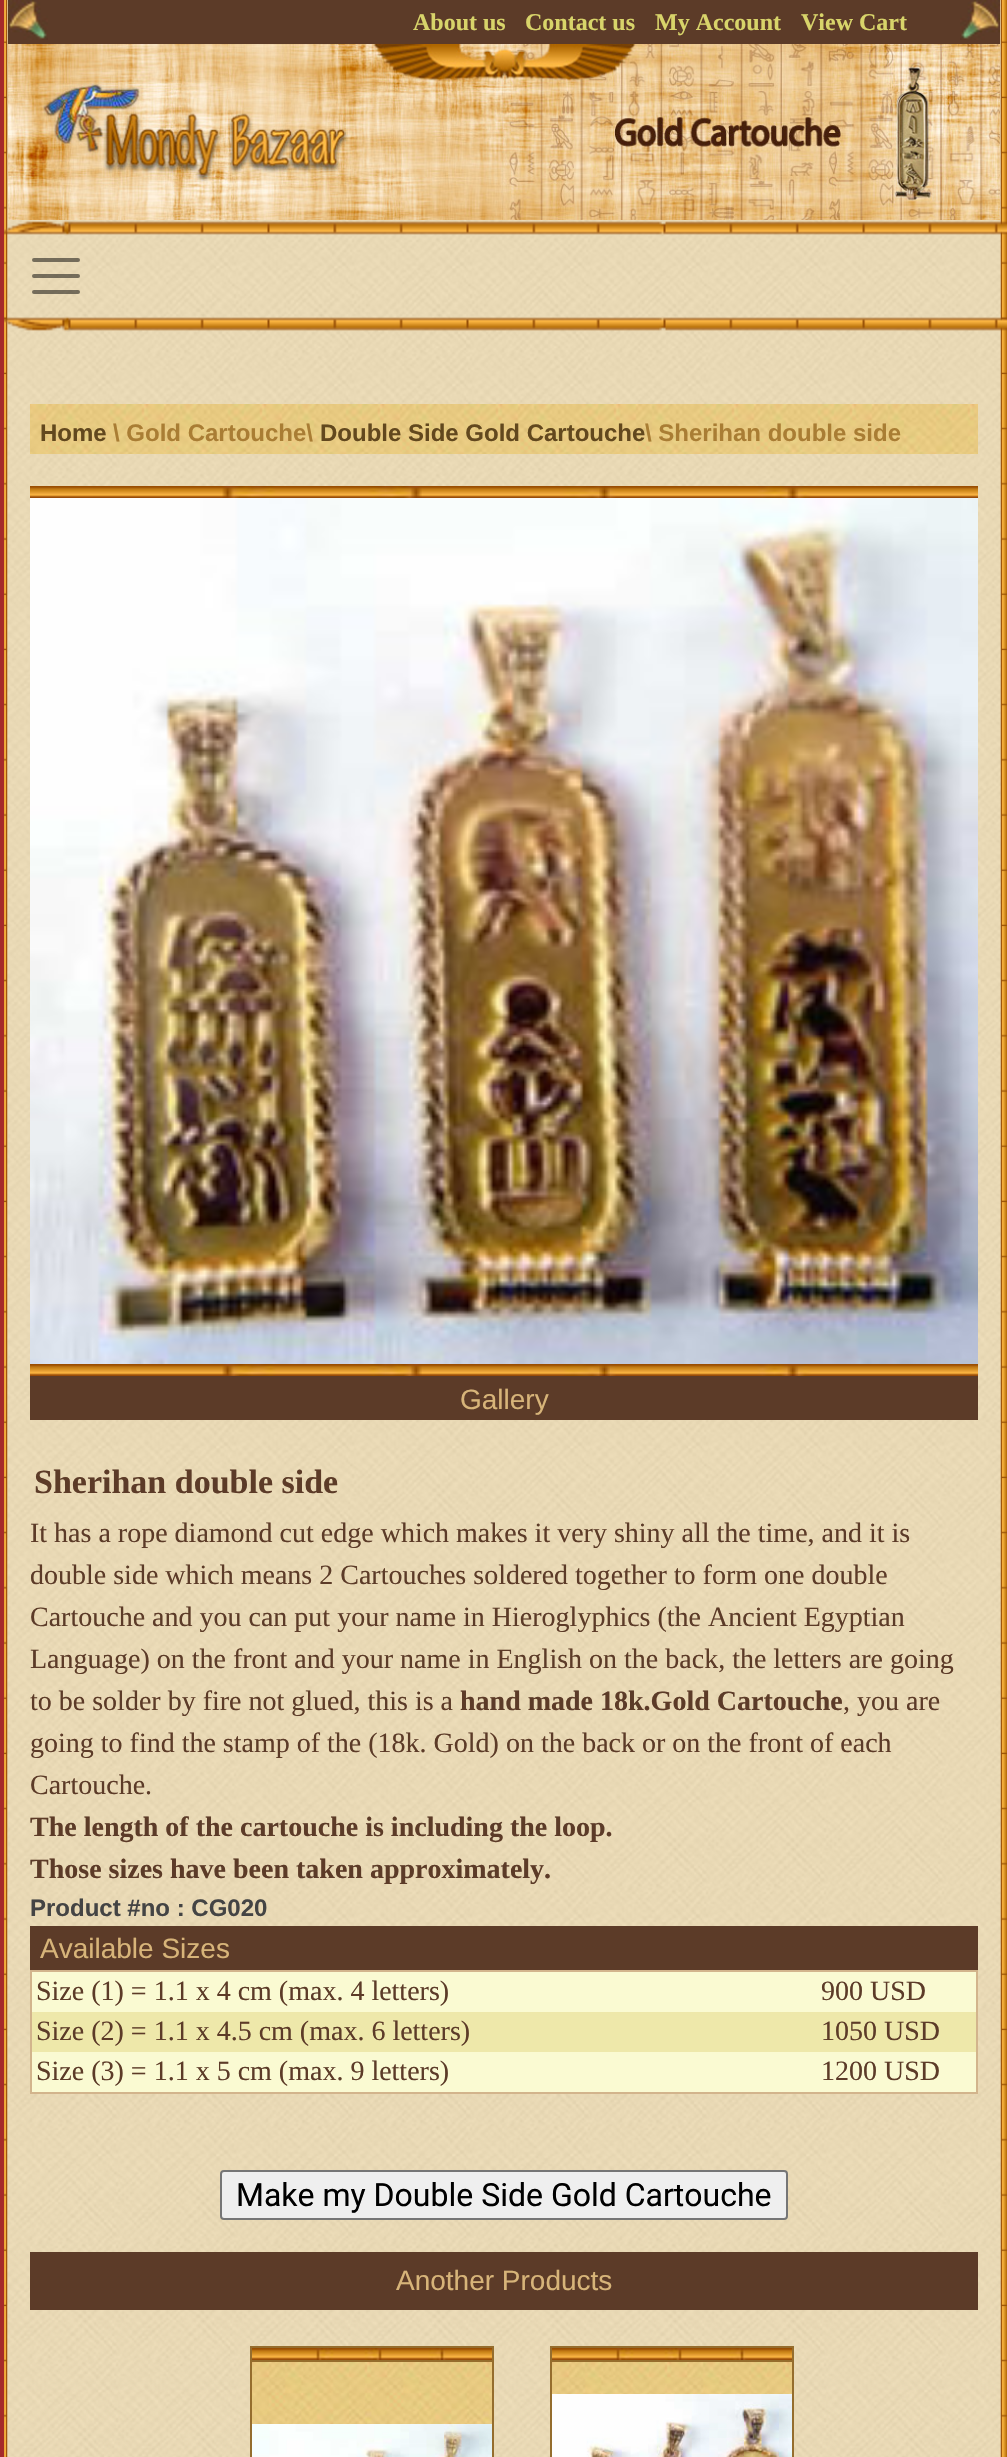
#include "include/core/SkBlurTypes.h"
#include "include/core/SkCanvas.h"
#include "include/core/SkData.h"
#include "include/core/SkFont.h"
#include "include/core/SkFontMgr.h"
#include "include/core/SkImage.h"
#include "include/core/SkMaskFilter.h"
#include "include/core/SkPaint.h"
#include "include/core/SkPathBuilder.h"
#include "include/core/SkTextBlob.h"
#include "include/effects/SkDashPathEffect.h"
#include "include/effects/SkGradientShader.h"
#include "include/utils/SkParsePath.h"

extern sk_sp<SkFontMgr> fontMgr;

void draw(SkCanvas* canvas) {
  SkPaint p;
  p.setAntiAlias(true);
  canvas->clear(SK_ColorWHITE);
  canvas->drawImageRect(SkImages::DeferredFromEncodedData(SkData::MakeFromFileName("images/1.png")), SkRect::MakeLTRB(7, 0, 1001, 2457), SkSamplingOptions());
  canvas->drawImageRect(SkImages::DeferredFromEncodedData(SkData::MakeFromFileName("images/2.png")), SkRect::MakeLTRB(4, 0, 1007, 2457), SkSamplingOptions());
  p.setColor(SkColorSetRGB(165, 42, 42));
  canvas->drawRect(SkRect::MakeLTRB(0, 0, 4, 2457), p);
  p.setStyle(SkPaint::kStroke_Style);
  p.setStrokeWidth(4);
  p.setStrokeCap(SkPaint::kRound_Cap);
  p.setColor(SkColorSetARGB(128, 0, 0, 0));
  canvas->drawPath(SkPathBuilder().moveTo(34, 260).lineTo(78, 260).moveTo(34, 276).lineTo(78, 276).moveTo(34, 292).lineTo(78, 292).detach(), p);
  canvas->drawImageRect(SkImages::DeferredFromEncodedData(SkData::MakeFromFileName("images/3.png")), SkRect::MakeLTRB(4, 220, 1007, 236), SkSamplingOptions());
  canvas->drawImageRect(SkImages::DeferredFromEncodedData(SkData::MakeFromFileName("images/4.png")), SkRect::MakeLTRB(4, 316, 1007, 332), SkSamplingOptions());
  p.setStyle(SkPaint::kFill_Style);
  p.setColor(SkColorSetRGB(92, 59, 40));
  canvas->drawRect(SkRect::MakeLTRB(8, 0, 1000, 44), p);
  canvas->drawImageRect(SkImages::DeferredFromEncodedData(SkData::MakeFromFileName("images/5.png")), SkRect::MakeLTRB(8, 0, 48, 40), SkSamplingOptions());
  canvas->drawImageRect(SkImages::DeferredFromEncodedData(SkData::MakeFromFileName("images/6.png")), SkRect::MakeLTRB(960, 0, 1000, 40), SkSamplingOptions());
  canvas->drawImageRect(SkImages::DeferredFromEncodedData(SkData::MakeFromFileName("images/7.png")), SkRect::MakeLTRB(8, 44, 1000, 220), SkSamplingOptions());
  canvas->drawImageRect(SkImages::DeferredFromEncodedData(SkData::MakeFromFileName("images/8.png")), SkRect::MakeLTRB(30, 404, 978, 454), SkSamplingOptions());
  canvas->drawImageRect(SkImages::DeferredFromEncodedData(SkData::MakeFromFileName("images/9.png")), SkRect::MakeLTRB(30, 486, 978, 498), SkSamplingOptions());
  canvas->drawImageRect(SkImages::DeferredFromEncodedData(SkData::MakeFromFileName("images/10.png")), SkRect::MakeLTRB(93, 486, 910, 498), SkSamplingOptions());
  canvas->drawImageRect(SkImages::DeferredFromEncodedData(SkData::MakeFromFileName("images/11.png")), SkRect::MakeLTRB(30, 498, 978, 1364), SkSamplingOptions());
  canvas->drawImageRect(SkImages::DeferredFromEncodedData(SkData::MakeFromFileName("images/9.png")), SkRect::MakeLTRB(30, 1364, 978, 1376), SkSamplingOptions());
  canvas->drawImageRect(SkImages::DeferredFromEncodedData(SkData::MakeFromFileName("images/10.png")), SkRect::MakeLTRB(93, 1364, 910, 1376), SkSamplingOptions());
  canvas->drawRect(SkRect::MakeLTRB(30, 1376, 978, 1420), p);
  canvas->drawRect(SkRect::MakeLTRB(30, 1926, 978, 1970), p);
  p.setColor(SkColorSetRGB(250, 250, 210));
  canvas->drawRect(SkRect::MakeLTRB(32, 1972, 976, 2092), p);
  p.setColor(SkColorSetRGB(210, 180, 140));
  canvas->drawRect(SkRect::MakeLTRB(30, 1970, 978, 1972), p);
  canvas->drawRect(SkRect::MakeLTRB(976, 1970, 978, 2094), p);
  canvas->drawRect(SkRect::MakeLTRB(30, 2092, 978, 2094), p);
  canvas->drawRect(SkRect::MakeLTRB(30, 1970, 32, 2094), p);
  p.setColor(SkColorSetRGB(238, 232, 170));
  canvas->drawRect(SkRect::MakeLTRB(32, 2012, 976, 2052), p);
  p.setColor(SkColorSetRGB(239, 239, 239));
  canvas->drawRoundRect(SkRect::MakeLTRB(221, 2171, 787, 2219), 3, 3, p);
  p.setStyle(SkPaint::kStroke_Style);
  p.setStrokeWidth(2);
  p.setStrokeCap(SkPaint::kButt_Cap);
  p.setColor(SkColorSetRGB(118, 118, 118));
  canvas->drawRoundRect(SkRect::MakeLTRB(221, 2171, 787, 2219), 3, 3, p);
  p.setStyle(SkPaint::kFill_Style);
  p.setColor(SkColorSetRGB(92, 59, 40));
  canvas->drawRect(SkRect::MakeLTRB(30, 2252, 978, 2310), p);
  canvas->drawImageRect(SkImages::DeferredFromEncodedData(SkData::MakeFromFileName("images/12.png")), SkRect::MakeLTRB(252, 2348, 492, 2360), SkSamplingOptions());
  p.setColor(SkColorSetRGB(149, 109, 45));
  canvas->drawRect(SkRect::MakeLTRB(250, 2346, 494, 2348), p);
  canvas->drawRect(SkRect::MakeLTRB(250, 2360, 494, 2362), p);
  canvas->drawRect(SkRect::MakeLTRB(492, 2360, 494, 2457), p);
  canvas->drawRect(SkRect::MakeLTRB(492, 2346, 494, 2362), p);
  canvas->drawRect(SkRect::MakeLTRB(250, 2360, 252, 2457), p);
  canvas->drawRect(SkRect::MakeLTRB(250, 2346, 252, 2362), p);
  canvas->drawImageRect(SkImages::DeferredFromEncodedData(SkData::MakeFromFileName("images/13.png")), SkRect::MakeLTRB(252, 2362, 492, 2424), SkSamplingOptions());
  canvas->drawImageRect(SkImages::DeferredFromEncodedData(SkData::MakeFromFileName("images/14.png")), SkRect::MakeLTRB(252, 2424, 492, 2457), SkSamplingOptions());
  canvas->drawImageRect(SkImages::DeferredFromEncodedData(SkData::MakeFromFileName("images/12.png")), SkRect::MakeLTRB(552, 2348, 792, 2360), SkSamplingOptions());
  canvas->drawRect(SkRect::MakeLTRB(550, 2346, 794, 2348), p);
  canvas->drawRect(SkRect::MakeLTRB(550, 2360, 794, 2362), p);
  canvas->drawRect(SkRect::MakeLTRB(792, 2360, 794, 2457), p);
  canvas->drawRect(SkRect::MakeLTRB(792, 2346, 794, 2362), p);
  canvas->drawRect(SkRect::MakeLTRB(550, 2360, 552, 2457), p);
  canvas->drawRect(SkRect::MakeLTRB(550, 2346, 552, 2362), p);
  canvas->drawImageRect(SkImages::DeferredFromEncodedData(SkData::MakeFromFileName("images/15.png")), SkRect::MakeLTRB(552, 2362, 792, 2394), SkSamplingOptions());
  canvas->drawImageRect(SkImages::DeferredFromEncodedData(SkData::MakeFromFileName("images/16.png")), SkRect::MakeLTRB(552, 2394, 792, 2457), SkSamplingOptions());
  SkFont font1(fontMgr->matchFamilyStyle("Liberation Serif", SkFontStyle::Bold()), 24);
  font1.setSubpixel(true);
  p.setColor(SkColorSetRGB(216, 212, 106));
  canvas->drawString("About us", 413, 30, font1, p);
  canvas->drawString("Contact us", 525, 30, font1, p);
  canvas->drawString("My Account", 655, 30, font1, p);
  canvas->drawString("View Cart", 801, 30, font1, p);
  SkFont font2(fontMgr->matchFamilyStyle("Liberation Sans", SkFontStyle::Bold()), 24);
  font2.setSubpixel(true);
  p.setColor(SkColorSetRGB(98, 72, 30));
  canvas->drawString("Home", 40, 441, font2, p);
  p.setColor(SkColorSetRGB(169, 125, 52));
  canvas->drawString("\\ Gold Cartouche\\", 113, 441, font2, p);
  p.setColor(SkColorSetRGB(98, 72, 30));
  canvas->drawString("Double Side Gold Cartouche", 320, 441, font2, p);
  p.setColor(SkColorSetRGB(169, 125, 52));
  canvas->drawString("\\ Sherihan double side", 645, 441, font2, p);
  SkFont font3(fontMgr->matchFamilyStyle("Liberation Sans", SkFontStyle::Normal()), 28);
  font3.setSubpixel(true);
  p.setColor(SkColorSetRGB(215, 180, 121));
  canvas->drawString("Gallery", 460, 1409, font3, p);
  SkFont font4(fontMgr->matchFamilyStyle("Liberation Serif", SkFontStyle::Bold()), 34);
  font4.setSubpixel(true);
  p.setColor(SkColorSetRGB(92, 59, 40));
  canvas->drawString("Sherihan double side", 34, 1493, font4, p);
  SkFont font5(fontMgr->matchFamilyStyle("Liberation Serif", SkFontStyle::Normal()), 28);
  font5.setSubpixel(true);
  canvas->drawString("It has a rope diamond cut edge which makes it very shiny all the time, and it is", 30, 1542, font5, p);
  canvas->drawString("double side which means 2 Cartouches soldered together to form one double", 30, 1584, font5, p);
  canvas->drawString("Cartouche and you can put your name in Hieroglyphics (the Ancient Egyptian", 30, 1626, font5, p);
  canvas->drawString("Language) on the front and your name in English on the back, the letters are going", 30, 1668, font5, p);
  canvas->drawString("to be solder by fire not glued, this is a", 30, 1710, font5, p);
  SkFont font6(fontMgr->matchFamilyStyle("Liberation Serif", SkFontStyle::Bold()), 28);
  font6.setSubpixel(true);
  canvas->drawString("hand made 18k.Gold Cartouche", 460, 1710, font6, p);
  canvas->drawString(", you are", 843, 1710, font5, p);
  canvas->drawString("going to find the stamp of the (18k. Gold) on the back or on the front of each", 30, 1752, font5, p);
  canvas->drawString("Cartouche.", 30, 1794, font5, p);
  canvas->drawString("The length of the cartouche is including the loop.", 30, 1836, font6, p);
  canvas->drawString("Those sizes have been taken approximately.", 30, 1878, font6, p);
  p.setColor(SkColorSetRGB(68, 68, 68));
  canvas->drawString("Product #no : CG020", 30, 1916, font2, p);
  p.setColor(SkColorSetRGB(215, 180, 121));
  canvas->drawString("Available Sizes", 40, 1958, font3, p);
  p.setColor(SkColorSetRGB(92, 59, 40));
  canvas->drawString("Size (1) = 1.1 x 4 cm (max. 4 letters)", 36, 2000, font5, p);
  canvas->drawString("900 USD", 821, 2000, font5, p);
  canvas->drawString("Size (2) = 1.1 x 4.5 cm (max. 6 letters)", 36, 2040, font5, p);
  canvas->drawString("1050 USD", 821, 2040, font5, p);
  canvas->drawString("Size (3) = 1.1 x 5 cm (max. 9 letters)", 36, 2080, font5, p);
  canvas->drawString("1200 USD", 821, 2080, font5, p);
  SkFont font7(fontMgr->matchFamilyStyle("Roboto", SkFontStyle::Normal()), 32);
  font7.setSubpixel(true);
  p.setColor(SK_ColorBLACK);
  canvas->drawString("Make my Double Side Gold Cartouche", 236, 2206, font7, p);
  p.setColor(SkColorSetRGB(215, 180, 121));
  canvas->drawString("Another Products", 396, 2290, font3, p);
}
